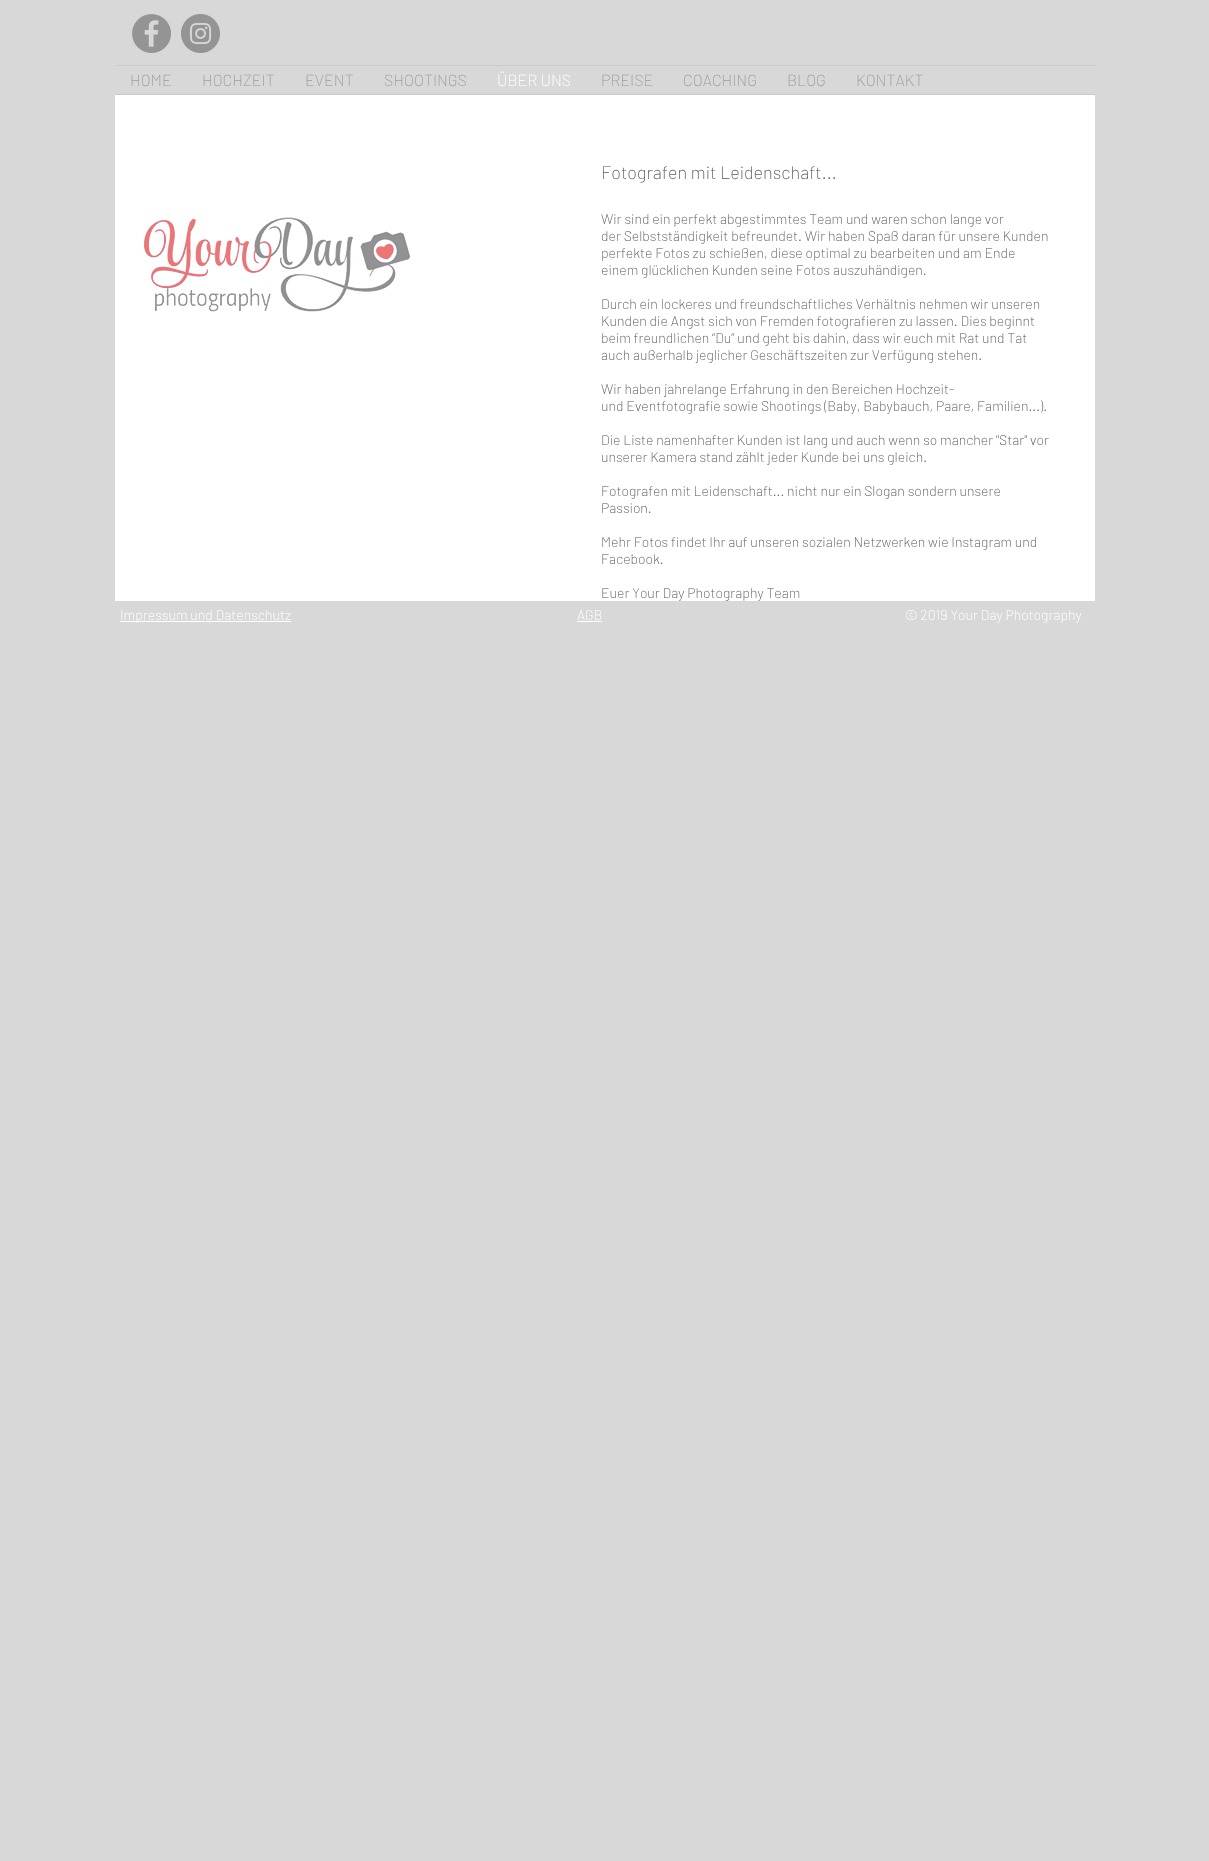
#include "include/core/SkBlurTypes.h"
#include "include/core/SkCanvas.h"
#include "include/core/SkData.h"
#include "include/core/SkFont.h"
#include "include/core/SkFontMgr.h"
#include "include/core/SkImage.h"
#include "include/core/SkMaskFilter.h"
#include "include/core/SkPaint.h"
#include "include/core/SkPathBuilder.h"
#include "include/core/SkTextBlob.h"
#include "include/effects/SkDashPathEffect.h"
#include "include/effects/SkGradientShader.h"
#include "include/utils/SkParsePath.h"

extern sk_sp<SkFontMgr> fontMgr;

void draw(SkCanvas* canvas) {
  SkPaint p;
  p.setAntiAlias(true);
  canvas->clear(SkColorSetRGB(216, 216, 216));
  canvas->drawImageRect(SkImages::DeferredFromEncodedData(SkData::MakeFromFileName("images/1.png")), SkRect::MakeLTRB(132, 14, 171, 53), SkSamplingOptions());
  canvas->drawImageRect(SkImages::DeferredFromEncodedData(SkData::MakeFromFileName("images/2.png")), SkRect::MakeLTRB(181, 14, 220, 53), SkSamplingOptions());
  p.setColor(SkColorSetRGB(202, 202, 202));
  canvas->drawRect(SkRect::MakeLTRB(115, 65, 1095, 66), p);
  canvas->drawRect(SkRect::MakeLTRB(115, 94, 1095, 95), p);
  p.setColor(SK_ColorWHITE);
  canvas->drawRect(SkRect::MakeLTRB(115, 95, 1095, 601), p);
  canvas->drawImageRect(SkImages::DeferredFromEncodedData(SkData::MakeFromFileName("images/3.png")), SkRect::MakeLTRB(143, 217, 411, 312), SkSamplingOptions());
  canvas->drawRect(SkRect::MakeLTRB(120, 621, 291, 622), p);
  canvas->drawRect(SkRect::MakeLTRB(577, 621, 602, 622), p);
  SkFont font1(fontMgr->matchFamilyStyle("Barlow", SkFontStyle(200, SkFontStyle::kNormal_Width, SkFontStyle::kUpright_Slant)), 16);
  font1.setSubpixel(true);
  p.setColor(SkColorSetRGB(158, 158, 158));
  canvas->drawString("HOME", 130, 86, font1, p);
  canvas->drawString("HOCHZEIT", 202, 86, font1, p);
  canvas->drawString("EVENT", 305, 86, font1, p);
  canvas->drawString("SHOOTINGS", 384, 86, font1, p);
  p.setColor(SK_ColorWHITE);
  canvas->drawString("ÜBER UNS", 497, 86, font1, p);
  p.setColor(SkColorSetRGB(158, 158, 158));
  canvas->drawString("PREISE", 601, 86, font1, p);
  canvas->drawString("COACHING", 683, 86, font1, p);
  canvas->drawString("BLOG", 787, 86, font1, p);
  canvas->drawString("KONTAKT", 856, 86, font1, p);
  SkFont font2(fontMgr->matchFamilyStyle("Barlow", SkFontStyle(200, SkFontStyle::kNormal_Width, SkFontStyle::kUpright_Slant)), 18);
  font2.setSubpixel(true);
  p.setColor(SkColorSetRGB(101, 101, 101));
  canvas->drawString("Fotografen mit Leidenschaft...", 601, 179, font2, p);
  SkFont font3(fontMgr->matchFamilyStyle("Barlow", SkFontStyle(200, SkFontStyle::kNormal_Width, SkFontStyle::kUpright_Slant)), 14);
  font3.setSubpixel(true);
  canvas->drawString("Wir sind ein perfekt abgestimmtes Team und waren schon lange vor", 601, 224, font3, p);
  canvas->drawString("der Selbstständigkeit befreundet. Wir haben Spaß daran für unsere Kunden", 601, 241, font3, p);
  canvas->drawString("perfekte Fotos zu schießen, diese optimal zu bearbeiten und am Ende", 601, 258, font3, p);
  canvas->drawString("einem glücklichen Kunden seine Fotos auszuhändigen.", 601, 275, font3, p);
  canvas->drawString("Durch ein lockeres und freundschaftliches Verhältnis nehmen wir unseren", 601, 309, font3, p);
  canvas->drawString("Kunden die Angst sich von Fremden fotografieren zu lassen. Dies beginnt", 601, 326, font3, p);
  canvas->drawString("beim freundlichen “Du” und geht bis dahin, dass wir euch mit Rat und Tat", 601, 343, font3, p);
  canvas->drawString("auch außerhalb jeglicher Geschäftszeiten zur Verfügung stehen.", 601, 360, font3, p);
  canvas->drawString("Wir haben jahrelange Erfahrung in den Bereichen Hochzeit-", 601, 394, font3, p);
  canvas->drawString("und Eventfotografie sowie Shootings (Baby, Babybauch, Paare, Familien...).", 601, 411, font3, p);
  canvas->drawString("Die Liste namenhafter Kunden ist lang und auch wenn so mancher \"Star\" vor", 601, 445, font3, p);
  canvas->drawString("unserer Kamera stand zählt jeder Kunde bei uns gleich.", 601, 462, font3, p);
  canvas->drawString("Fotografen mit Leidenschaft... nicht nur ein Slogan sondern unsere", 601, 496, font3, p);
  canvas->drawString("Passion.", 601, 513, font3, p);
  canvas->drawString("Mehr Fotos findet Ihr auf unseren sozialen Netzwerken wie Instagram und", 601, 547, font3, p);
  canvas->drawString("Facebook.", 601, 564, font3, p);
  canvas->drawString("Euer Your Day Photography Team", 601, 598, font3, p);
  p.setColor(SK_ColorWHITE);
  canvas->drawString("Impressum und Datenschutz", 120, 620, font3, p);
  canvas->drawString("AGB", 577, 620, font3, p);
  canvas->drawString("© 2019 Your Day Photography", 905, 620, font3, p);
}
